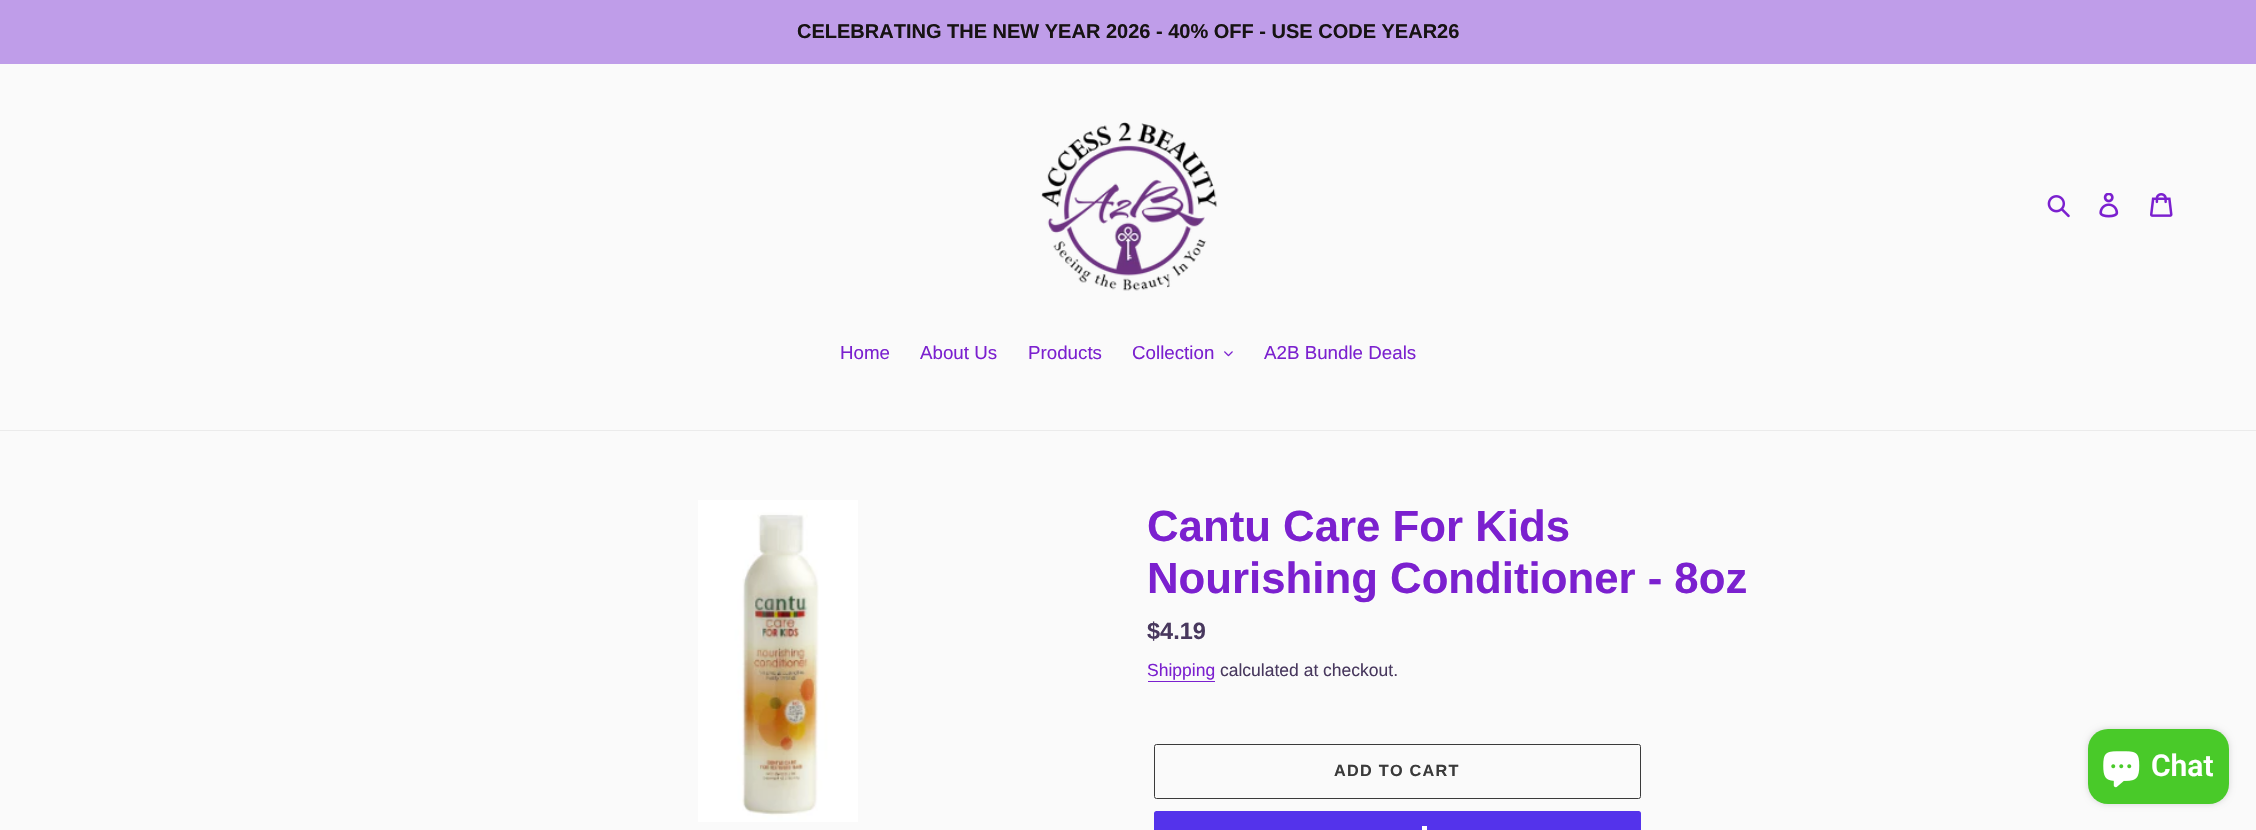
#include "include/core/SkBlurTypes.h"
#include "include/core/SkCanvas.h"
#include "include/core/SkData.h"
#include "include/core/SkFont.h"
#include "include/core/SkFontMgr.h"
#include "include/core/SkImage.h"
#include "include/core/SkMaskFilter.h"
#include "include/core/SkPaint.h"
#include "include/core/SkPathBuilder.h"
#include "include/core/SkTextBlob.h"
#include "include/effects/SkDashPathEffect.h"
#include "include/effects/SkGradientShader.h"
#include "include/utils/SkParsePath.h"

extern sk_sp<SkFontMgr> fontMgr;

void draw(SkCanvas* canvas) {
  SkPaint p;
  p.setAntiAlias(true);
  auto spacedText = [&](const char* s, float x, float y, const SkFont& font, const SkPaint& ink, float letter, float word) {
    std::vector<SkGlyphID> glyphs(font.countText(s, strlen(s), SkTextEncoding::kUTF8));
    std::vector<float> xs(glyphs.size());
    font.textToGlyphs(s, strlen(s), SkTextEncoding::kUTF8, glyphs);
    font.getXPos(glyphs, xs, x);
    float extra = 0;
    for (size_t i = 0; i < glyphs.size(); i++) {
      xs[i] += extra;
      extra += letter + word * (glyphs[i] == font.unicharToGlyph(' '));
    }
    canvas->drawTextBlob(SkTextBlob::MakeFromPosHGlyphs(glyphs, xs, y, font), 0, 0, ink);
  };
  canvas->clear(SkColorSetRGB(250, 250, 250));
  p.setColor(SkColorSetRGB(191, 157, 233));
  canvas->drawRect(SkRect::MakeLTRB(0, 0, 2256, 64), p);
  canvas->drawImageRect(SkImages::DeferredFromEncodedData(SkData::MakeFromFileName("images/1.png")), SkRect::MakeLTRB(1041, 122, 1218, 291), SkSamplingOptions());
  canvas->drawImageRect(SkImages::DeferredFromEncodedData(SkData::MakeFromFileName("images/2.png")), SkRect::MakeLTRB(2047, 195, 2070, 218), SkSamplingOptions());
  canvas->drawImageRect(SkImages::DeferredFromEncodedData(SkData::MakeFromFileName("images/3.png")), SkRect::MakeLTRB(2099, 193, 2119, 218), SkSamplingOptions());
  canvas->drawImageRect(SkImages::DeferredFromEncodedData(SkData::MakeFromFileName("images/4.png")), SkRect::MakeLTRB(2150, 193, 2173, 217), SkSamplingOptions());
  p.setColor(SkColorSetRGB(235, 235, 235));
  canvas->drawRect(SkRect::MakeLTRB(0, 430, 2256, 431), p);
  canvas->drawImageRect(SkImages::DeferredFromEncodedData(SkData::MakeFromFileName("images/5.png")), SkRect::MakeLTRB(1224, 351, 1233, 357), SkSamplingOptions());
  canvas->drawImageRect(SkImages::DeferredFromEncodedData(SkData::MakeFromFileName("images/6.png")), SkRect::MakeLTRB(698, 500, 858, 822), SkSamplingOptions());
  p.setColor(SkColorSetRGB(123, 32, 207));
  canvas->drawRect(SkRect::MakeLTRB(1148, 681, 1215, 682), p);
  p.setStyle(SkPaint::kStroke_Style);
  p.setStrokeWidth(1);
  p.setColor(SkColorSetRGB(58, 58, 58));
  canvas->drawRoundRect(SkRect::MakeLTRB(1154.5f, 744.5f, 1640.5f, 798.5f), 2, 2, p);
  p.setStyle(SkPaint::kFill_Style);
  p.setColor(SkColorSetRGB(84, 51, 235));
  canvas->drawRoundRect(SkRect::MakeLTRB(1154, 811, 1641, 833), 2.5f, 2.5f, p);
  p.setColor(SK_ColorWHITE);
  canvas->drawRect(SkRect::MakeLTRB(1422, 826, 1427, 830), p);
  p.setColor(SkColorSetARGB(38, 0, 0, 0));
  p.setMaskFilter(SkMaskFilter::MakeBlur(kNormal_SkBlurStyle, 3));
  canvas->drawRoundRect(SkRect::MakeLTRB(2088, 729, 2229, 804), 20, 20, p);
  p.setMaskFilter(nullptr);
  p.setColor(SkColorSetRGB(73, 202, 41));
  canvas->drawRoundRect(SkRect::MakeLTRB(2088, 729, 2229, 804), 20, 20, p);
  canvas->drawImageRect(SkImages::DeferredFromEncodedData(SkData::MakeFromFileName("images/7.png")), SkRect::MakeLTRB(2103, 751, 2140, 788), SkSamplingOptions());
  SkFont font1(fontMgr->matchFamilyStyle("Liberation Sans", SkFontStyle::Bold()), 20);
  font1.setSubpixel(true);
  p.setColor(SkColorSetRGB(23, 19, 19));
  canvas->drawString("CELEBRATING THE NEW YEAR 2026 - 40% OFF - USE CODE YEAR26", 797, 38, font1, p);
  SkFont font2(fontMgr->matchFamilyStyle("Liberation Sans", SkFontStyle::Normal()), 18.75f);
  font2.setSubpixel(true);
  p.setColor(SkColorSetRGB(123, 32, 207));
  canvas->drawString("Home", 840, 359, font2, p);
  canvas->drawString("About Us", 920, 359, font2, p);
  canvas->drawString("Products", 1028, 359, font2, p);
  canvas->drawString("Collection", 1132, 359, font2, p);
  canvas->drawString("A2B Bundle Deals", 1264, 359, font2, p);
  SkFont font3(fontMgr->matchFamilyStyle("Liberation Sans", SkFontStyle::Bold()), 43.75f);
  font3.setSubpixel(true);
  canvas->drawString("Cantu Care For Kids", 1147, 541, font3, p);
  canvas->drawString("Nourishing Conditioner - 8oz", 1147, 593, font3, p);
  SkFont font4(fontMgr->matchFamilyStyle("Liberation Sans", SkFontStyle::Bold()), 23.5f);
  font4.setSubpixel(true);
  p.setColor(SkColorSetRGB(72, 56, 94));
  canvas->drawString("$4.19", 1147, 639, font4, p);
  SkFont font5(fontMgr->matchFamilyStyle("Liberation Sans", SkFontStyle::Normal()), 17.5f);
  font5.setSubpixel(true);
  p.setColor(SkColorSetRGB(123, 32, 207));
  canvas->drawString("Shipping", 1147, 676, font5, p);
  p.setColor(SkColorSetRGB(72, 56, 94));
  canvas->drawString("calculated at checkout.", 1220, 676, font5, p);
  SkFont font6(fontMgr->matchFamilyStyle("Liberation Sans", SkFontStyle::Bold()), 16.25f);
  font6.setSubpixel(true);
  p.setColor(SkColorSetRGB(58, 58, 58));
  spacedText("ADD TO CART", 1334, 776, font6, p, 1.25f, 0);
  SkFont font7(fontMgr->matchFamilyStyle("Roboto", SkFontStyle(600, SkFontStyle::kNormal_Width, SkFontStyle::kUpright_Slant)), 30);
  font7.setSubpixel(true);
  p.setColor(SK_ColorWHITE);
  canvas->drawString("Chat", 2151, 776, font7, p);
}
